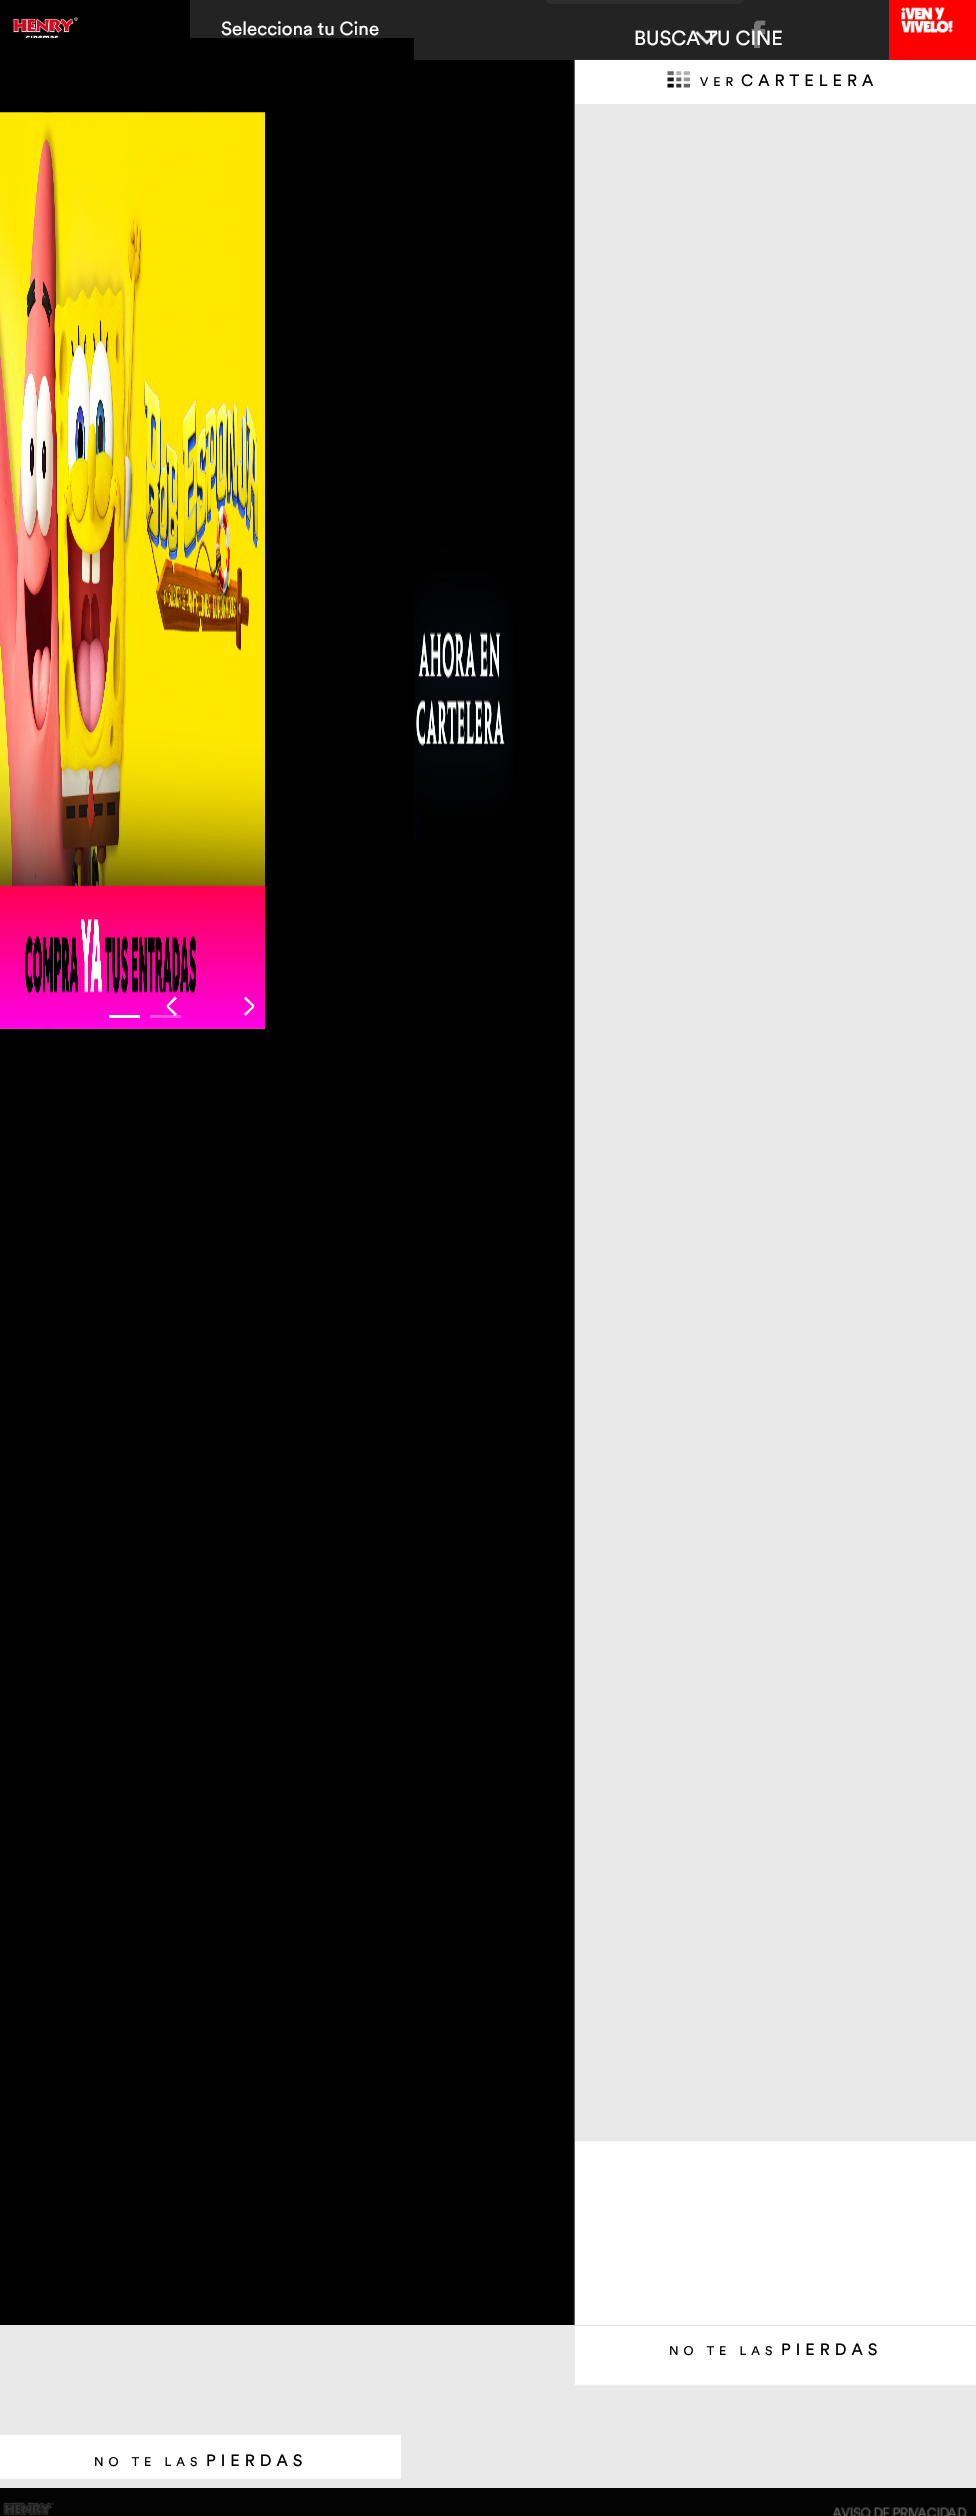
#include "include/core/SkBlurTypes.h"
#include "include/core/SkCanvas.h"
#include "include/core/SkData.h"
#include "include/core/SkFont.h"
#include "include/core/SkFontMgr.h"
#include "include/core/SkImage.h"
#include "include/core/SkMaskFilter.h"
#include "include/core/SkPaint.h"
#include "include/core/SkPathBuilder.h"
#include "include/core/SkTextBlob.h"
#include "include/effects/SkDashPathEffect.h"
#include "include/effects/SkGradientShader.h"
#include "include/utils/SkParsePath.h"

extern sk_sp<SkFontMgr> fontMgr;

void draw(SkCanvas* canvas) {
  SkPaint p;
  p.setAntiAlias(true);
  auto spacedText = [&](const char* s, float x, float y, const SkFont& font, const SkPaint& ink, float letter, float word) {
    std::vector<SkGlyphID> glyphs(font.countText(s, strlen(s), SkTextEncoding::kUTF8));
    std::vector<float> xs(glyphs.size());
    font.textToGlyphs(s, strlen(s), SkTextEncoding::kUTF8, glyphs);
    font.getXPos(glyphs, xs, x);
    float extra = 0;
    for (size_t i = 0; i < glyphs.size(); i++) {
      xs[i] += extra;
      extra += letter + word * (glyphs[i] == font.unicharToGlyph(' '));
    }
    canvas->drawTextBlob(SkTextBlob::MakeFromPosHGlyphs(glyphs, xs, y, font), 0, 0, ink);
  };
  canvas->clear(SkColorSetRGB(233, 233, 233));
  p.setColor(SkColorSetRGB(35, 35, 35));
  canvas->drawRect(SkRect::MakeLTRB(190, 0, 889, 60), p);
  canvas->drawImageRect(SkImages::DeferredFromEncodedData(SkData::MakeFromFileName("images/1.png")), SkRect::MakeLTRB(751, 20, 766, 48), SkSamplingOptions());
  p.setColor(SkColorSetRGB(255, 0, 0));
  canvas->drawRect(SkRect::MakeLTRB(889, 0, 976, 60), p);
  canvas->drawImageRect(SkImages::DeferredFromEncodedData(SkData::MakeFromFileName("images/2.png")), SkRect::MakeLTRB(901, 7, 953, 33), SkSamplingOptions());
  p.setColor(SK_ColorBLACK);
  canvas->drawRect(SkRect::MakeLTRB(0, 0, 190, 38), p);
  canvas->drawImageRect(SkImages::DeferredFromEncodedData(SkData::MakeFromFileName("images/3.png")), SkRect::MakeLTRB(12, 17, 78, 38), SkSamplingOptions());
  p.setColor(SkColorSetRGB(46, 46, 46));
  canvas->drawPath(SkPathBuilder().moveTo(546, 0).lineTo(743, 0).lineTo(743, -1).cubicTo(743, 2, 741, 4, 738, 4).lineTo(551, 4).cubicTo(548, 4, 546, 2, 546, -1).close().detach(), p);
  canvas->drawImageRect(SkImages::DeferredFromEncodedData(SkData::MakeFromFileName("images/4.png")), SkRect::MakeLTRB(695, 31, 718, 46), SkSamplingOptions());
  p.setColor(SK_ColorBLACK);
  canvas->drawRect(SkRect::MakeLTRB(0, 60, 575, 2325), p);
  canvas->drawRect(SkRect::MakeLTRB(0, 38, 414, 60), p);
  canvas->drawImageRect(SkImages::DeferredFromEncodedData(SkData::MakeFromFileName("images/5.png")), SkRect::MakeLTRB(0, 112, 265, 1029), SkSamplingOptions());
  canvas->drawImageRect(SkImages::DeferredFromEncodedData(SkData::MakeFromFileName("images/6.png")), SkRect::MakeLTRB(0, 112, 265, 1029), SkSamplingOptions());
  p.setColor(SkColorSetARGB(77, 255, 255, 255));
  canvas->drawRect(SkRect::MakeLTRB(150, 1015, 181, 1018), p);
  p.setColor(SK_ColorWHITE);
  canvas->drawPath(SkPathBuilder().moveTo(175, 1016).lineTo(166.5f, 1007).lineTo(168, 1005.5f).lineTo(177, 1014).close().detach(), p);
  canvas->drawPath(SkPathBuilder().moveTo(168, 1007).lineTo(166.5f, 1005.5f).lineTo(175, 996.5f).lineTo(177, 998.5f).close().detach(), p);
  canvas->drawPath(SkPathBuilder().moveTo(245.5f, 996.5f).lineTo(254.5f, 1005.5f).lineTo(253, 1007).lineTo(244, 998.5f).close().detach(), p);
  canvas->drawPath(SkPathBuilder().moveTo(253, 1005.5f).lineTo(254.5f, 1007).lineTo(245.5f, 1016).lineTo(244, 1014).close().detach(), p);
  canvas->drawRect(SkRect::MakeLTRB(109, 1015, 140, 1018), p);
  canvas->drawImageRect(SkImages::DeferredFromEncodedData(SkData::MakeFromFileName("images/7.png")), SkRect::MakeLTRB(414, 537, 513, 843), SkSamplingOptions());
  canvas->drawRect(SkRect::MakeLTRB(575, 2325, 976, 2385), p);
  p.setColor(SkColorSetRGB(92, 92, 92));
  p.setMaskFilter(SkMaskFilter::MakeBlur(kNormal_SkBlurStyle, 0.5f));
  canvas->drawRect(SkRect::MakeLTRB(574, 60, 975, 2325), p);
  p.setMaskFilter(nullptr);
  p.setColor(SK_ColorWHITE);
  canvas->drawRect(SkRect::MakeLTRB(575, 60, 976, 2325), p);
  canvas->drawImageRect(SkImages::DeferredFromEncodedData(SkData::MakeFromFileName("images/8.png")), SkRect::MakeLTRB(667, 71, 690, 88), SkSamplingOptions());
  p.setColor(SkColorSetRGB(233, 233, 233));
  canvas->drawRect(SkRect::MakeLTRB(575, 104, 976, 2141), p);
  p.setColor(SK_ColorWHITE);
  canvas->drawRect(SkRect::MakeLTRB(0, 2435, 401, 2479), p);
  p.setColor(SkColorSetRGB(3, 3, 3));
  canvas->drawRect(SkRect::MakeLTRB(0, 2488, 976, 2516), p);
  canvas->drawImageRect(SkImages::DeferredFromEncodedData(SkData::MakeFromFileName("images/9.png")), SkRect::MakeLTRB(3, 2502, 54, 2516), SkSamplingOptions());
  canvas->drawImageRect(SkImages::DeferredFromEncodedData(SkData::MakeFromFileName("images/10.png")), SkRect::MakeLTRB(832, 2507, 967, 2516), SkSamplingOptions());
  SkFont font1(fontMgr->matchFamilyStyle("Circular", SkFontStyle::Normal()), 18.75f);
  font1.setSubpixel(true);
  p.setColor(SK_ColorWHITE);
  canvas->drawString("Selecciona tu Cine", 221, 35, font1, p);
  SkFont font2(fontMgr->matchFamilyStyle("Circular", SkFontStyle::Normal()), 20);
  font2.setSubpixel(true);
  canvas->drawString("BUSCA TU CINE", 634, 45, font2, p);
  SkFont font3(fontMgr->matchFamilyStyle("Circular", SkFontStyle::Normal()), 12.5f);
  font3.setSubpixel(true);
  p.setColor(SK_ColorBLACK);
  spacedText("VER", 700, 86, font3, p, 5, 0);
  SkFont font4(fontMgr->matchFamilyStyle("Circular", SkFontStyle::Normal()), 16.25f);
  font4.setSubpixel(true);
  spacedText("CARTELERA", 741, 86, font4, p, 5, 0);
  spacedText("NO TE LAS", 669, 2355, font3, p, 5, 0);
  spacedText("PIERDAS", 781, 2355, font4, p, 5, 0);
  spacedText("NO TE LAS", 94, 2466, font3, p, 5, 0);
  spacedText("PIERDAS", 206, 2466, font4, p, 5, 0);
}
